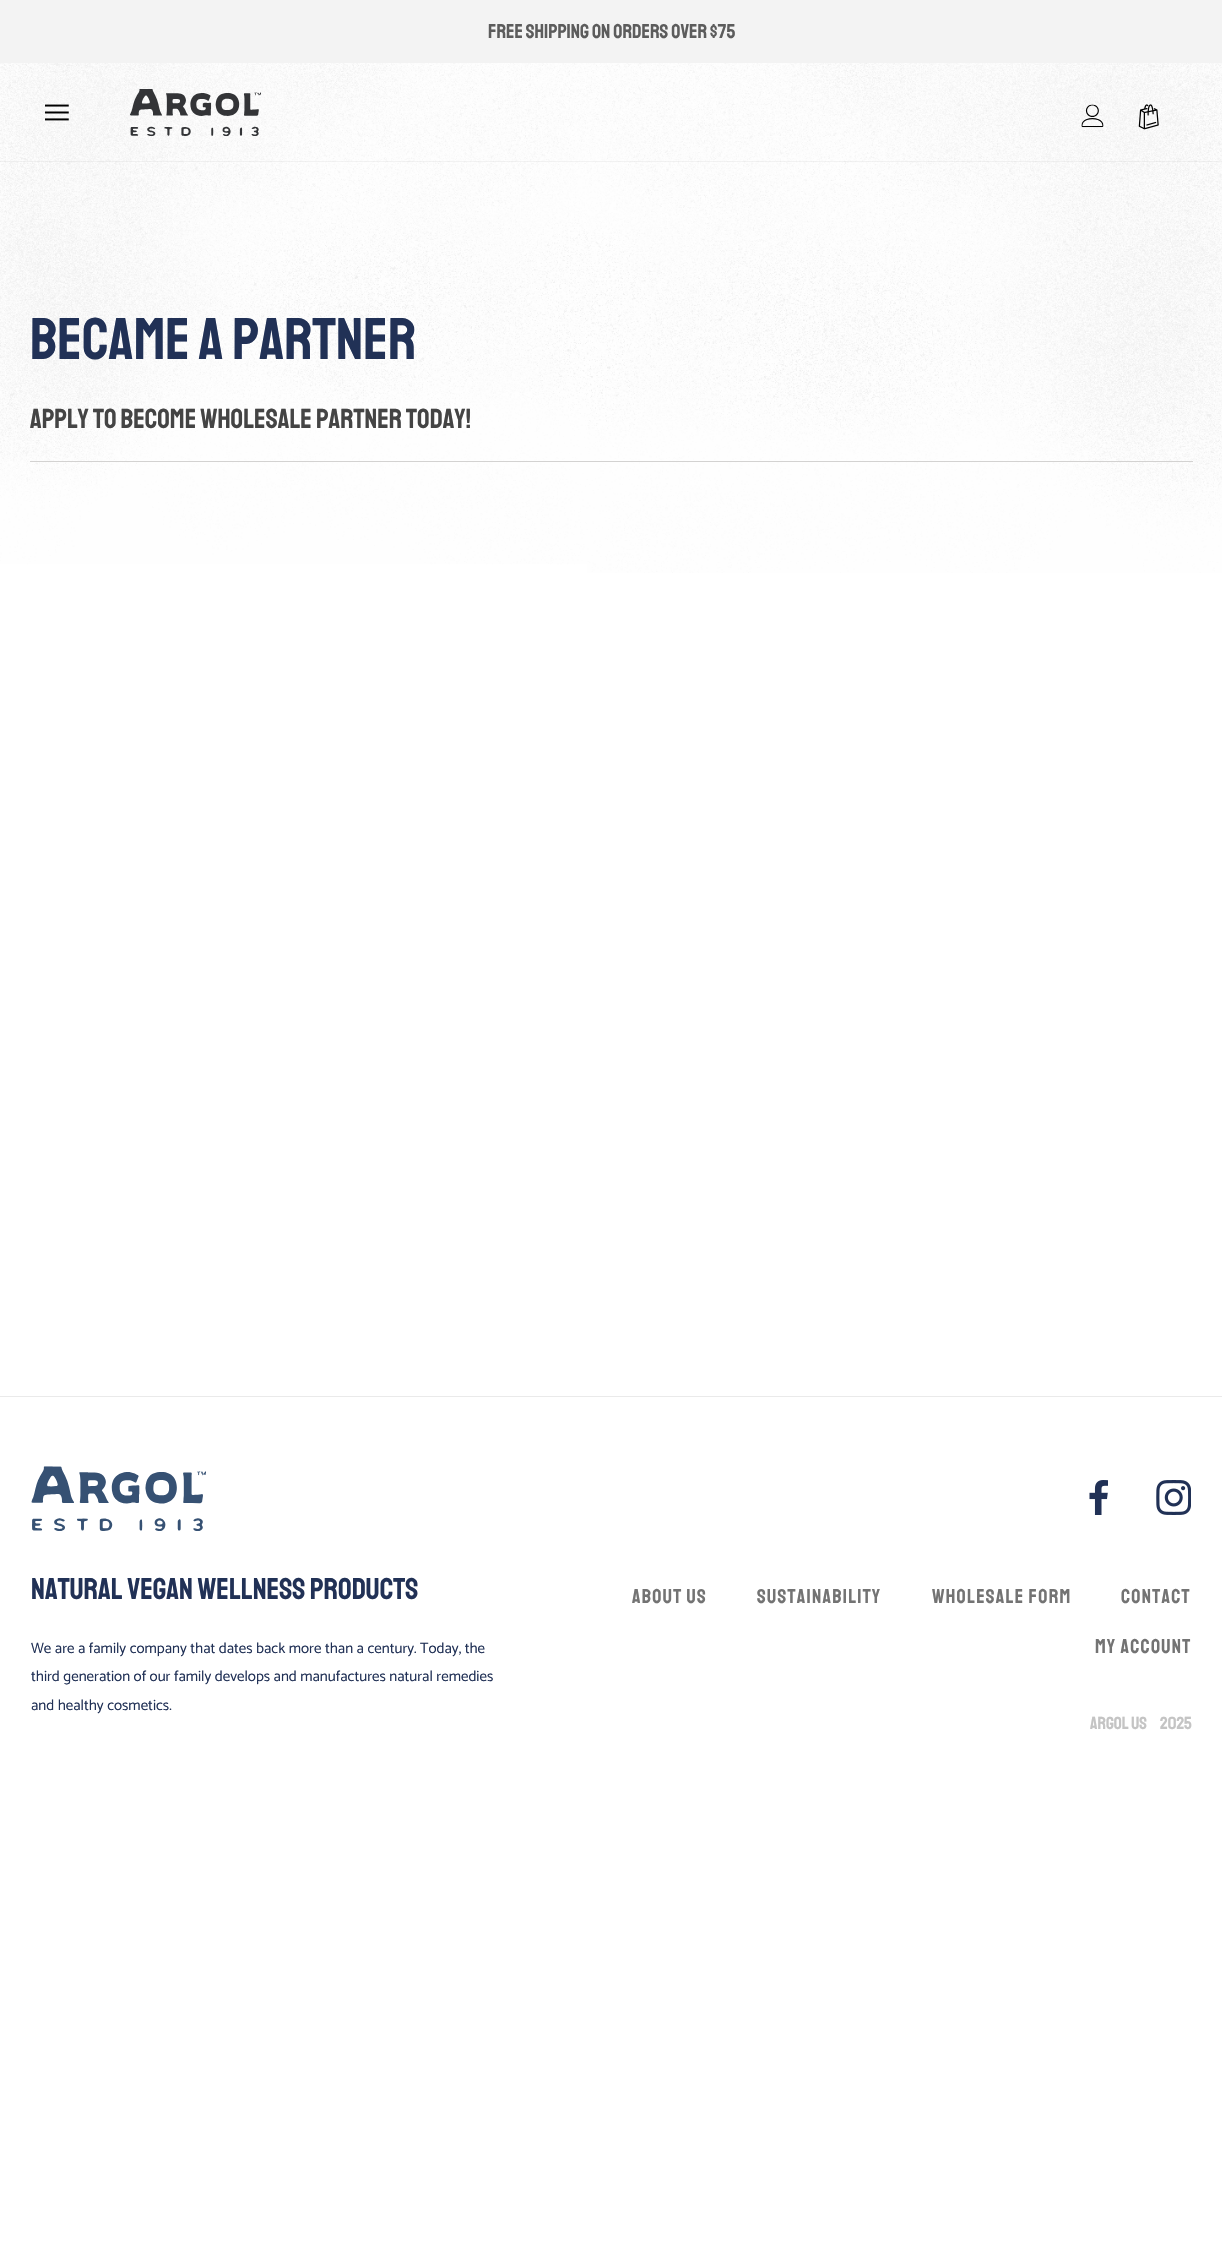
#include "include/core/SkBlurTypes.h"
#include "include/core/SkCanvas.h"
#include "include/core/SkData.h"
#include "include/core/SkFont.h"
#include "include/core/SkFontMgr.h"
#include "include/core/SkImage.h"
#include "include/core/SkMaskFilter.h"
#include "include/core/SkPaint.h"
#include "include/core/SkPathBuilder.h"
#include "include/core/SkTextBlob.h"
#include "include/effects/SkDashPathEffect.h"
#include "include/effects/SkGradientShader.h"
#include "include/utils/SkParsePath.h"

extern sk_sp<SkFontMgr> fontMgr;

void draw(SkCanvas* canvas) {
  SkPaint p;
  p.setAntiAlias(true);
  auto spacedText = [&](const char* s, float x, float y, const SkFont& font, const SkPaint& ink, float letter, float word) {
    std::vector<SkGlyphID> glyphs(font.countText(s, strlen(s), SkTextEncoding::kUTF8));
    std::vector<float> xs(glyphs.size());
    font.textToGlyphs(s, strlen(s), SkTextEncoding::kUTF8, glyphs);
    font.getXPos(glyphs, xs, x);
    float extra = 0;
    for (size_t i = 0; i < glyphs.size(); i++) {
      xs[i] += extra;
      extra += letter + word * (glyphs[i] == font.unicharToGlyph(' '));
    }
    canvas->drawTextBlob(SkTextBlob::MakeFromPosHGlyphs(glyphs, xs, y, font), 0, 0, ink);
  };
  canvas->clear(SK_ColorWHITE);
  p.setColor(SkColorSetRGB(243, 243, 243));
  canvas->drawRect(SkRect::MakeLTRB(0, 0, 1222, 63), p);
  canvas->drawImageRect(SkImages::DeferredFromEncodedData(SkData::MakeFromFileName("images/8.png")), SkRect::MakeLTRB(0, 63, 1222, 573), SkSamplingOptions());
  p.setColor(SkColorSetARGB(23, 128, 128, 128));
  canvas->drawRect(SkRect::MakeLTRB(0, 161, 1222, 162), p);
  canvas->drawImageRect(SkImages::DeferredFromEncodedData(SkData::MakeFromFileName("images/1.png")), SkRect::MakeLTRB(45, 104, 69, 121), SkSamplingOptions());
  canvas->drawImageRect(SkImages::DeferredFromEncodedData(SkData::MakeFromFileName("images/2.png")), SkRect::MakeLTRB(130, 89, 261, 136), SkSamplingOptions());
  canvas->drawImageRect(SkImages::DeferredFromEncodedData(SkData::MakeFromFileName("images/3.png")), SkRect::MakeLTRB(1081, 104, 1104, 128), SkSamplingOptions());
  canvas->drawImageRect(SkImages::DeferredFromEncodedData(SkData::MakeFromFileName("images/4.png")), SkRect::MakeLTRB(1138, 104, 1159, 130), SkSamplingOptions());
  p.setColor(SkColorSetRGB(211, 210, 209));
  canvas->drawRect(SkRect::MakeLTRB(30, 461, 1193, 462), p);
  p.setColor(SkColorSetRGB(234, 234, 234));
  canvas->drawRect(SkRect::MakeLTRB(0, 1396, 1222, 1397), p);
  canvas->drawImageRect(SkImages::DeferredFromEncodedData(SkData::MakeFromFileName("images/5.png")), SkRect::MakeLTRB(31, 1466, 206, 1531), SkSamplingOptions());
  canvas->drawImageRect(SkImages::DeferredFromEncodedData(SkData::MakeFromFileName("images/6.png")), SkRect::MakeLTRB(1089, 1480, 1108, 1515), SkSamplingOptions());
  canvas->drawImageRect(SkImages::DeferredFromEncodedData(SkData::MakeFromFileName("images/7.png")), SkRect::MakeLTRB(1156, 1480, 1191, 1515), SkSamplingOptions());
  SkFont font1(fontMgr->matchFamilyStyle("Staatliches", SkFontStyle::Normal()), 20);
  font1.setSubpixel(true);
  p.setColor(SkColorSetRGB(92, 92, 92));
  canvas->drawString("FREE SHIPPING ON ORDERS OVER $75", 488, 38, font1, p);
  SkFont font2(fontMgr->matchFamilyStyle("Staatliches", SkFontStyle::Normal()), 58.75f);
  font2.setSubpixel(true);
  p.setColor(SkColorSetRGB(33, 49, 86));
  canvas->drawString("BECAME A PARTNER", 30, 359, font2, p);
  SkFont font3(fontMgr->matchFamilyStyle("Staatliches", SkFontStyle::Normal()), 27.5f);
  font3.setSubpixel(true);
  p.setColor(SkColorSetRGB(68, 68, 68));
  canvas->drawString("APPLY TO BECOME WHOLESALE PARTNER TODAY!", 30, 428, font3, p);
  SkFont font4(fontMgr->matchFamilyStyle("Staatliches", SkFontStyle::Normal()), 30);
  font4.setSubpixel(true);
  p.setColor(SkColorSetRGB(33, 49, 86));
  canvas->drawString("NATURAL VEGAN WELLNESS PRODUCTS", 31, 1599, font4, p);
  SkFont font5(fontMgr->matchFamilyStyle("Catamaran", SkFontStyle::Normal()), 15);
  font5.setSubpixel(true);
  canvas->drawString("We are a family company that dates back more than a century. Today, the", 31, 1653, font5, p);
  canvas->drawString("third generation of our family develops and manufactures natural remedies", 31, 1681, font5, p);
  canvas->drawString("and healthy cosmetics.", 31, 1710, font5, p);
  p.setColor(SkColorSetRGB(115, 115, 115));
  spacedText("About us", 632, 1603, font1, p, 1.25f, 0);
  spacedText("Sustainability", 757, 1603, font1, p, 1.25f, 0);
  spacedText("Wholesale form", 932, 1603, font1, p, 1.25f, 0);
  spacedText("Contact", 1121, 1603, font1, p, 1.25f, 0);
  spacedText("My account", 1095, 1653, font1, p, 1.25f, 0);
  SkFont font6(fontMgr->matchFamilyStyle("Staatliches", SkFontStyle::Normal()), 17.5f);
  font6.setSubpixel(true);
  p.setColor(SkColorSetRGB(196, 196, 196));
  canvas->drawString("ARGOL US", 1090, 1729, font6, p);
  canvas->drawString("2025", 1160, 1729, font6, p);
}
